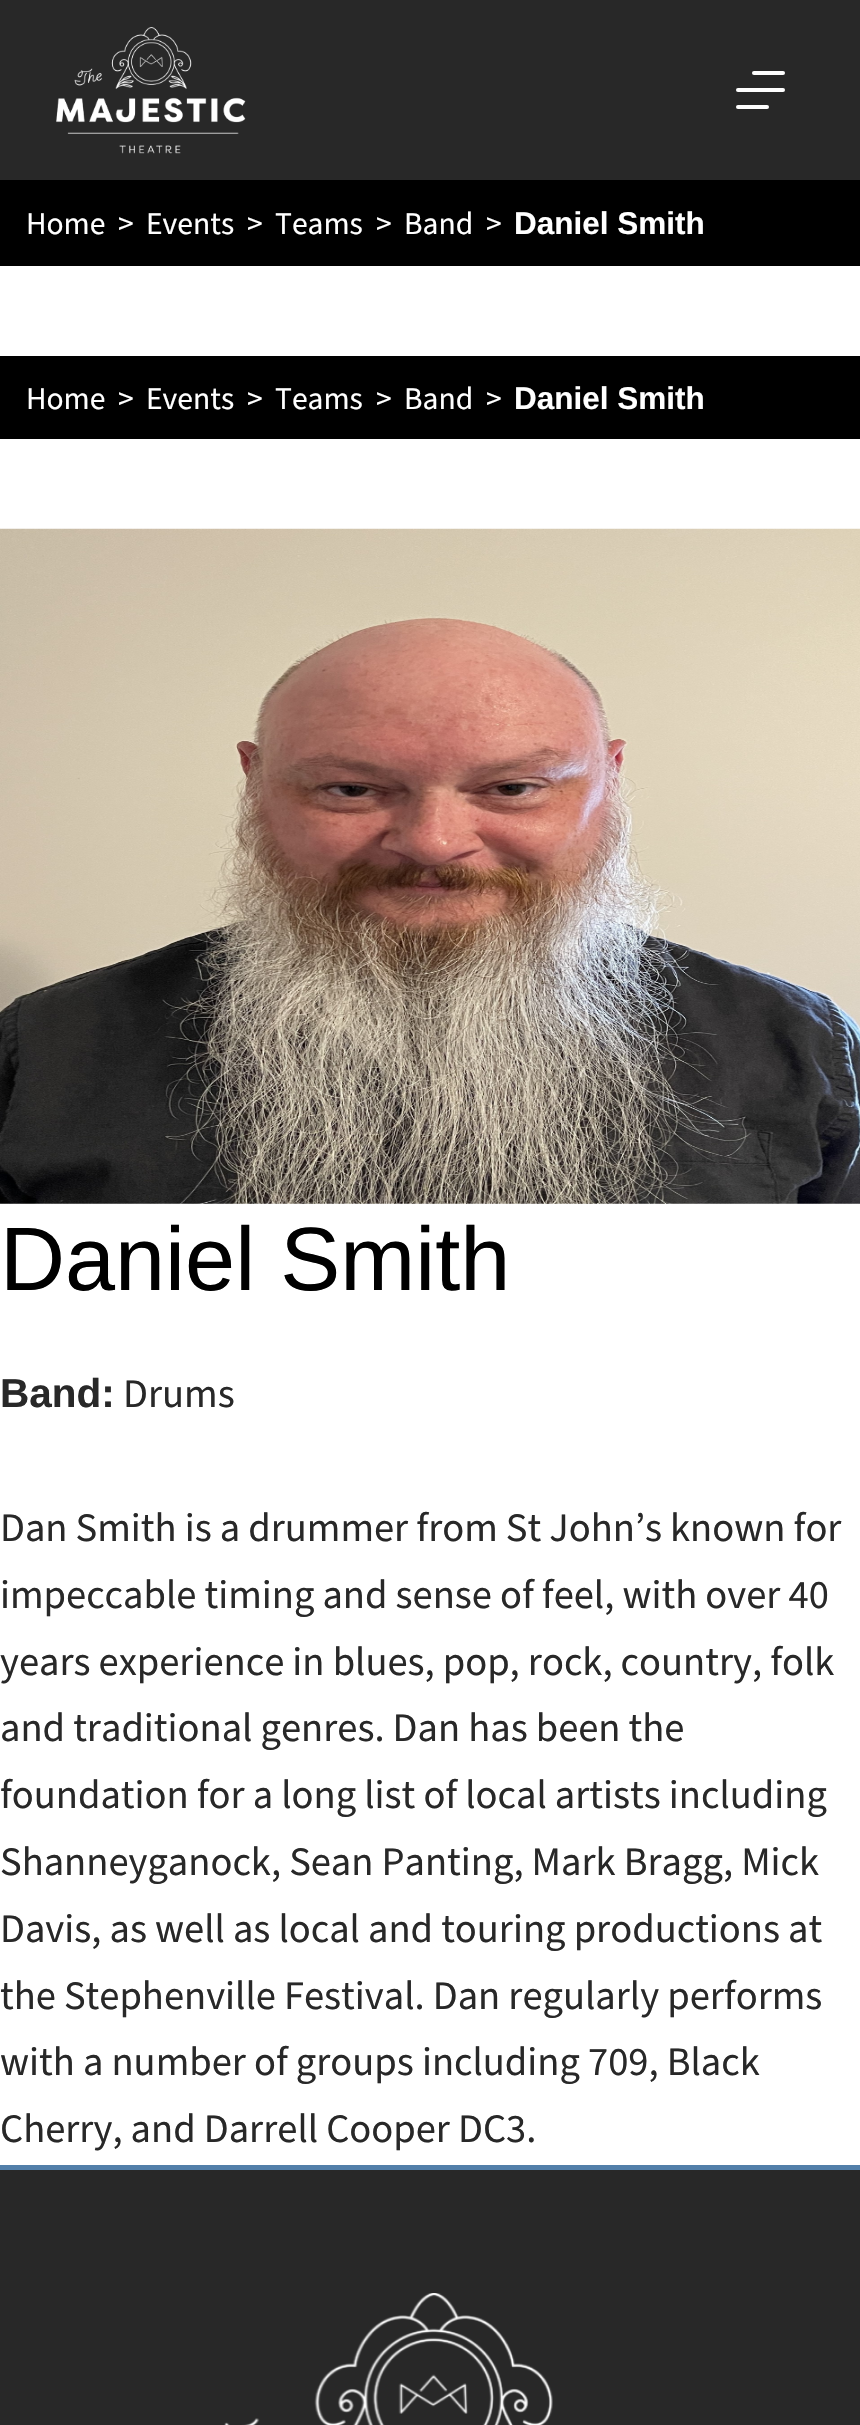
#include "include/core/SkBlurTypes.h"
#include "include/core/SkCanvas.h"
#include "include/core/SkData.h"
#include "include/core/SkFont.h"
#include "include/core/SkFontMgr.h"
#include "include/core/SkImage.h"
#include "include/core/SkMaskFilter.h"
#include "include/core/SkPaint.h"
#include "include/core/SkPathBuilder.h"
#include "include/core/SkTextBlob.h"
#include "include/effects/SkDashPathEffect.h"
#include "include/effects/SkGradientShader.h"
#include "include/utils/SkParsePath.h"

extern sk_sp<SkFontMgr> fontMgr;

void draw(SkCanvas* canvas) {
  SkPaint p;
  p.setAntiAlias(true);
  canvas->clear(SK_ColorWHITE);
  p.setColor(SkColorSetRGB(40, 40, 40));
  canvas->drawRect(SkRect::MakeLTRB(0, 0, 860, 180), p);
  canvas->drawImageRect(SkImages::DeferredFromEncodedData(SkData::MakeFromFileName("images/1.png")), SkRect::MakeLTRB(56, 27, 246, 154), SkSamplingOptions());
  p.setColor(SK_ColorWHITE);
  canvas->drawRoundRect(SkRect::MakeLTRB(752, 71, 785, 75), 2, 2, p);
  canvas->drawRoundRect(SkRect::MakeLTRB(736, 88, 785, 92), 2, 2, p);
  canvas->drawRoundRect(SkRect::MakeLTRB(736, 105, 769, 109), 2, 2, p);
  p.setColor(SK_ColorBLACK);
  canvas->drawRect(SkRect::MakeLTRB(0, 180, 860, 266), p);
  canvas->drawRect(SkRect::MakeLTRB(0, 356, 860, 439), p);
  canvas->drawImageRect(SkImages::DeferredFromEncodedData(SkData::MakeFromFileName("images/2.png")), SkRect::MakeLTRB(0, 528, 860, 1204), SkSamplingOptions());
  p.setColor(SkColorSetRGB(40, 40, 40));
  canvas->drawRect(SkRect::MakeLTRB(0, 2170, 860, 2425), p);
  p.setColor(SkColorSetRGB(82, 127, 169));
  canvas->drawRect(SkRect::MakeLTRB(0, 2165, 860, 2170), p);
  canvas->drawImageRect(SkImages::DeferredFromEncodedData(SkData::MakeFromFileName("images/3.png")), SkRect::MakeLTRB(224, 2293, 553, 2425), SkSamplingOptions());
  SkFont font1(fontMgr->matchFamilyStyle("Source Sans Pro", SkFontStyle::Normal()), 31.5f);
  font1.setSubpixel(true);
  p.setColor(SK_ColorWHITE);
  canvas->drawString("Home", 26, 234, font1, p);
  canvas->drawString(">", 118, 234, font1, p);
  canvas->drawString("Events", 146, 234, font1, p);
  canvas->drawString(">", 247, 234, font1, p);
  canvas->drawString("Teams", 275, 234, font1, p);
  canvas->drawString(">", 376, 234, font1, p);
  canvas->drawString("Band", 404, 234, font1, p);
  canvas->drawString(">", 486, 234, font1, p);
  SkFont font2(fontMgr->matchFamilyStyle("Liberation Sans", SkFontStyle::Bold()), 31.5f);
  font2.setSubpixel(true);
  canvas->drawString("Daniel Smith", 514, 234, font2, p);
  canvas->drawString("Home", 26, 409, font1, p);
  canvas->drawString(">", 118, 409, font1, p);
  canvas->drawString("Events", 146, 409, font1, p);
  canvas->drawString(">", 247, 409, font1, p);
  canvas->drawString("Teams", 275, 409, font1, p);
  canvas->drawString(">", 376, 409, font1, p);
  canvas->drawString("Band", 404, 409, font1, p);
  canvas->drawString(">", 486, 409, font1, p);
  canvas->drawString("Daniel Smith", 514, 409, font2, p);
  SkFont font3(fontMgr->matchFamilyStyle("Liberation Sans", SkFontStyle::Normal()), 90);
  font3.setSubpixel(true);
  p.setColor(SK_ColorBLACK);
  canvas->drawString("Daniel Smith", 0, 1290, font3, p);
  SkFont font4(fontMgr->matchFamilyStyle("Liberation Sans", SkFontStyle::Bold()), 40.5f);
  font4.setSubpixel(true);
  p.setColor(SkColorSetRGB(40, 40, 40));
  canvas->drawString("Band:", 0, 1407, font4, p);
  SkFont font5(fontMgr->matchFamilyStyle("Source Sans Pro", SkFontStyle::Normal()), 40.5f);
  font5.setSubpixel(true);
  canvas->drawString("Drums", 123, 1407, font5, p);
  canvas->drawString("Dan Smith is a drummer from St John’s known for", 0, 1541, font5, p);
  canvas->drawString("impeccable timing and sense of feel, with over 40", 0, 1608, font5, p);
  canvas->drawString("years experience in blues, pop, rock, country, folk", 0, 1675, font5, p);
  canvas->drawString("and traditional genres. Dan has been the", 0, 1741, font5, p);
  canvas->drawString("foundation for a long list of local artists including", 0, 1808, font5, p);
  canvas->drawString("Shanneyganock, Sean Panting, Mark Bragg, Mick", 0, 1875, font5, p);
  canvas->drawString("Davis, as well as local and touring productions at", 0, 1942, font5, p);
  canvas->drawString("the Stephenville Festival. Dan regularly performs", 0, 2009, font5, p);
  canvas->drawString("with a number of groups including 709, Black", 0, 2075, font5, p);
  canvas->drawString("Cherry, and Darrell Cooper DC3.", 0, 2142, font5, p);
}
